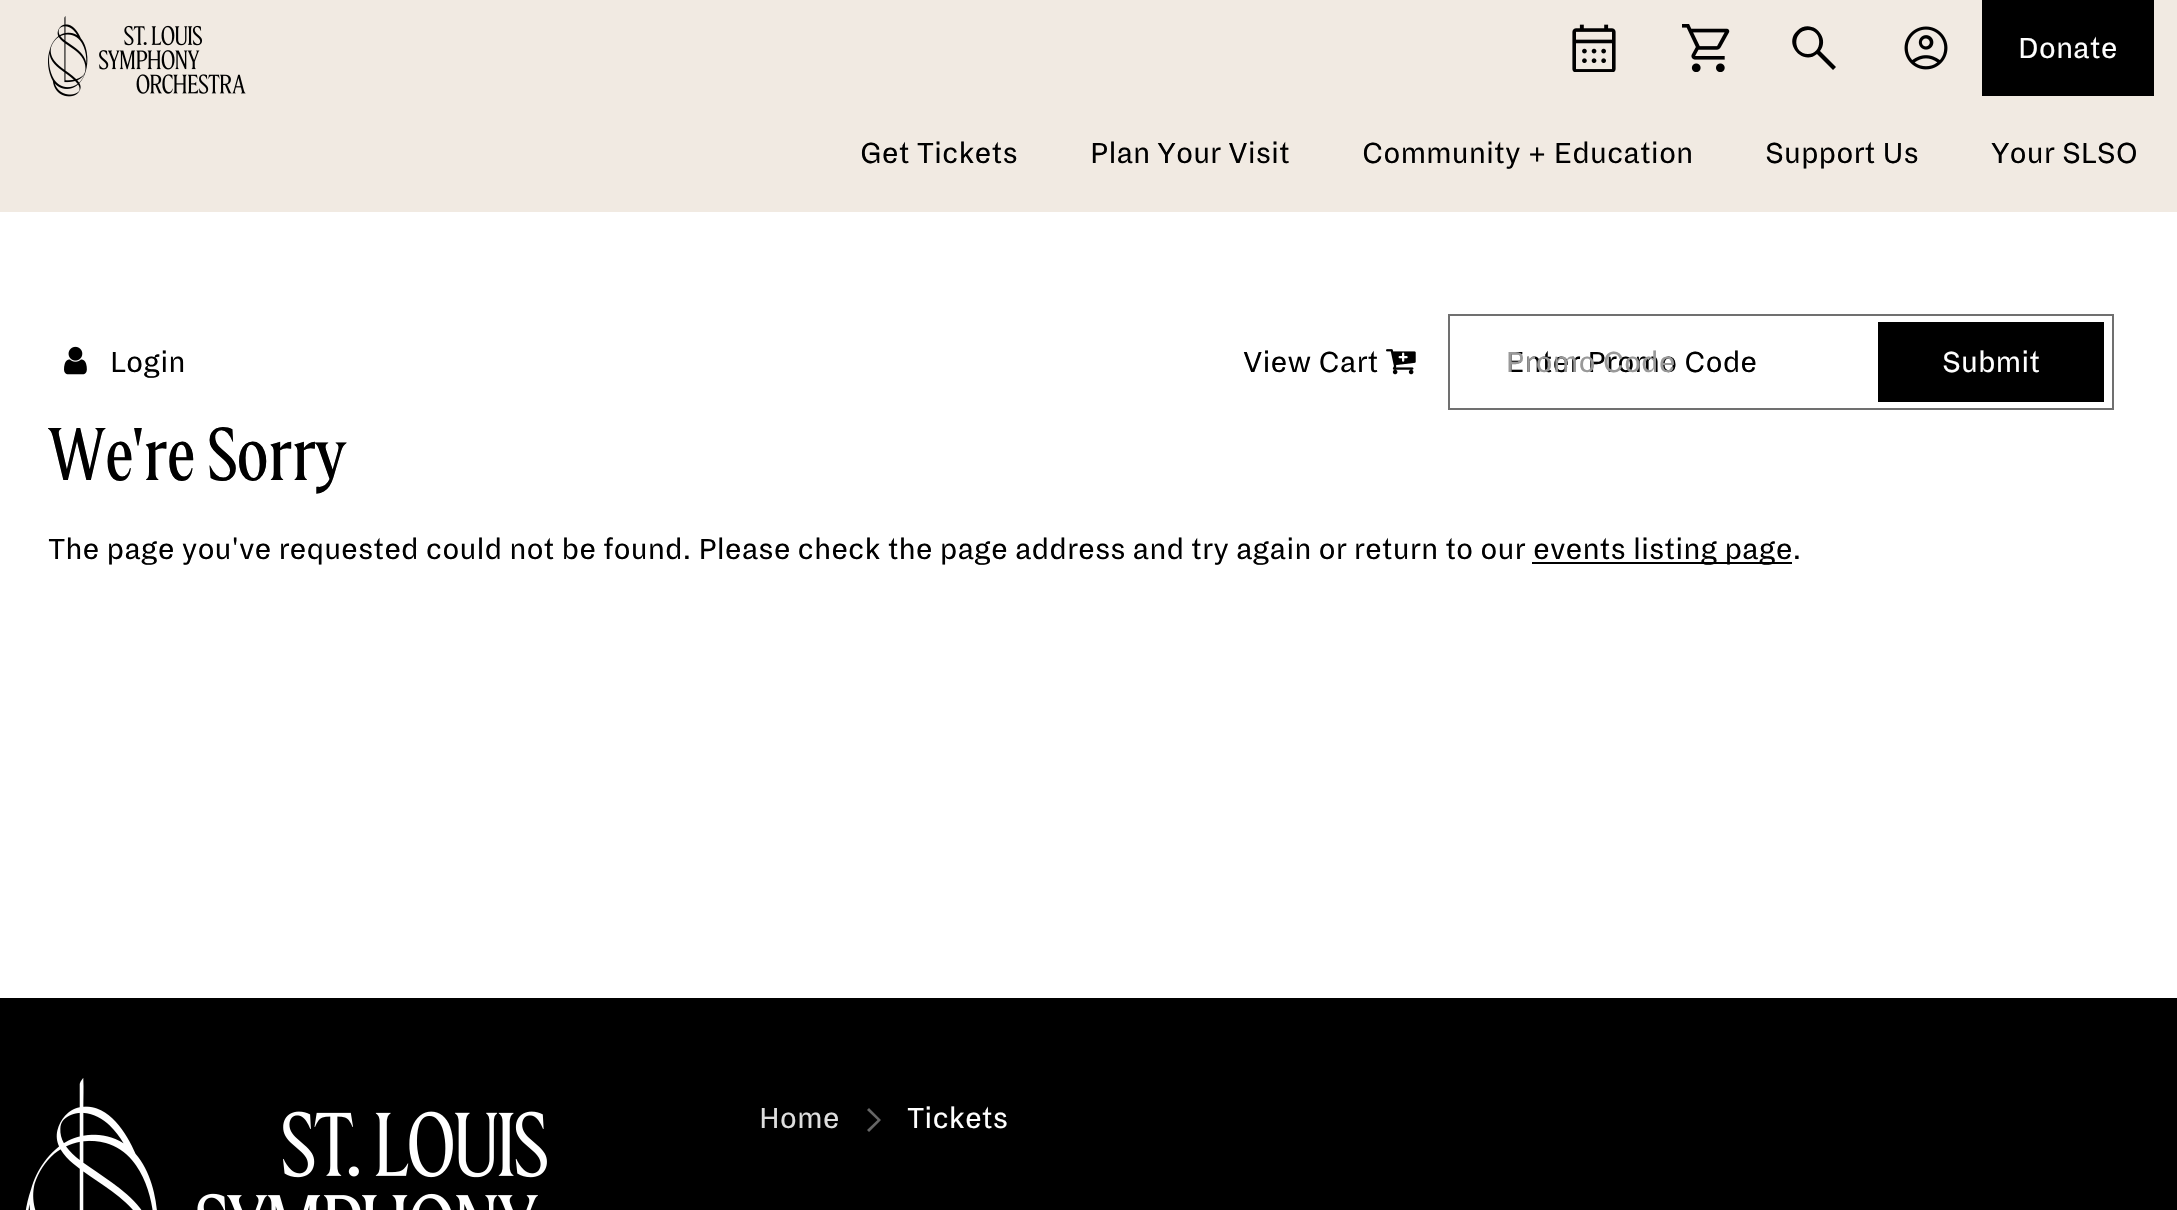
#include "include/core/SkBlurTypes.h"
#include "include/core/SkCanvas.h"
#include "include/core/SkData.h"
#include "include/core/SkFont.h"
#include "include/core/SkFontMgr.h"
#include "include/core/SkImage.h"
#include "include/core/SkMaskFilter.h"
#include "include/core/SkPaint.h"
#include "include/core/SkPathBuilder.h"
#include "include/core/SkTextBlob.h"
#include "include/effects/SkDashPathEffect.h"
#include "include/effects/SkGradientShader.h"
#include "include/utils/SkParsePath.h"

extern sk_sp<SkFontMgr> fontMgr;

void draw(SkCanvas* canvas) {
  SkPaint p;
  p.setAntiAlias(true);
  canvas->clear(SK_ColorWHITE);
  p.setColor(SkColorSetRGB(241, 234, 226));
  canvas->drawRect(SkRect::MakeLTRB(0, 0, 2177, 212), p);
  canvas->drawImageRect(SkImages::DeferredFromEncodedData(SkData::MakeFromFileName("images/1.png")), SkRect::MakeLTRB(48, 16, 246, 97), SkSamplingOptions());
  canvas->drawImageRect(SkImages::DeferredFromEncodedData(SkData::MakeFromFileName("images/2.png")), SkRect::MakeLTRB(1572, 24, 1616, 72), SkSamplingOptions());
  canvas->drawImageRect(SkImages::DeferredFromEncodedData(SkData::MakeFromFileName("images/3.png")), SkRect::MakeLTRB(1682, 24, 1730, 72), SkSamplingOptions());
  p.setColor(SK_ColorBLACK);
  canvas->drawPath(SkPathBuilder().moveTo(1833, 70).lineTo(1817, 54).cubicTo(1803, 66, 1783, 44, 1797, 31).cubicTo(1811, 17, 1831, 37, 1820, 51).lineTo(1836, 67).close().moveTo(1808, 54).cubicTo(1823, 54, 1823, 30, 1808, 30).cubicTo(1792, 31, 1793, 54, 1808, 54).close().detach(), p);
  canvas->drawImageRect(SkImages::DeferredFromEncodedData(SkData::MakeFromFileName("images/4.png")), SkRect::MakeLTRB(1904, 26, 1948, 70), SkSamplingOptions());
  canvas->drawRect(SkRect::MakeLTRB(1982, 0, 2154, 96), p);
  canvas->drawImageRect(SkImages::DeferredFromEncodedData(SkData::MakeFromFileName("images/5.png")), SkRect::MakeLTRB(64, 346, 87, 375), SkSamplingOptions());
  canvas->drawImageRect(SkImages::DeferredFromEncodedData(SkData::MakeFromFileName("images/6.png")), SkRect::MakeLTRB(1386, 349, 1416, 375), SkSamplingOptions());
  p.setStyle(SkPaint::kStroke_Style);
  p.setStrokeWidth(2);
  p.setColor(SkColorSetRGB(112, 112, 112));
  canvas->drawRect(SkRect::MakeLTRB(1449, 315, 2113, 409), p);
  p.setStyle(SkPaint::kFill_Style);
  p.setColor(SK_ColorBLACK);
  canvas->drawRect(SkRect::MakeLTRB(1878, 322, 2104, 402), p);
  canvas->drawRect(SkRect::MakeLTRB(1532, 562, 1792, 564), p);
  canvas->drawRect(SkRect::MakeLTRB(0, 998, 2177, 1210), p);
  canvas->drawImageRect(SkImages::DeferredFromEncodedData(SkData::MakeFromFileName("images/7.png")), SkRect::MakeLTRB(25, 1078, 547, 1210), SkSamplingOptions());
  p.setColor(SkColorSetRGB(102, 102, 102));
  canvas->drawPath(SkPathBuilder().moveTo(869, 1108).lineTo(867, 1110).lineTo(877.5f, 1120).lineTo(867, 1130).lineTo(869, 1132).lineTo(881, 1120).close().detach(), p);
  SkFont font1(fontMgr->matchFamilyStyle("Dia", SkFontStyle::Normal()), 32);
  font1.setSubpixel(true);
  p.setColor(SK_ColorWHITE);
  canvas->drawString("Donate", 2018, 58, font1, p);
  p.setColor(SK_ColorBLACK);
  canvas->drawString("Get Tickets", 860, 163, font1, p);
  canvas->drawString("Plan Your Visit", 1090, 163, font1, p);
  canvas->drawString("Community + Education", 1362, 163, font1, p);
  canvas->drawString("Support Us", 1765, 163, font1, p);
  canvas->drawString("Your SLSO", 1991, 163, font1, p);
  canvas->drawString("Login", 110, 372, font1, p);
  canvas->drawString("View Cart", 1243, 372, font1, p);
  canvas->drawString("Enter Promo Code", 1506, 372, font1, p);
  p.setColor(SK_ColorWHITE);
  canvas->drawString("Submit", 1942, 372, font1, p);
  p.setColor(SkColorSetRGB(153, 153, 153));
  canvas->drawString("Promo Code", 1506, 372, font1, p);
  SkFont font2(fontMgr->matchFamilyStyle("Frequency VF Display", SkFontStyle(500, SkFontStyle::kNormal_Width, SkFontStyle::kUpright_Slant)), 68);
  font2.setSubpixel(true);
  p.setColor(SK_ColorBLACK);
  canvas->drawString("We're Sorry", 48, 480, font2, p);
  canvas->drawString("The page you've requested could not be found. Please check the page address and try again or return to our", 48, 559, font1, p);
  canvas->drawString("events listing page.", 1533, 559, font1, p);
  p.setColor(SkColorSetRGB(222, 222, 222));
  canvas->drawString("Home", 759, 1128, font1, p);
  p.setColor(SK_ColorWHITE);
  canvas->drawString("Tickets", 907, 1128, font1, p);
}
